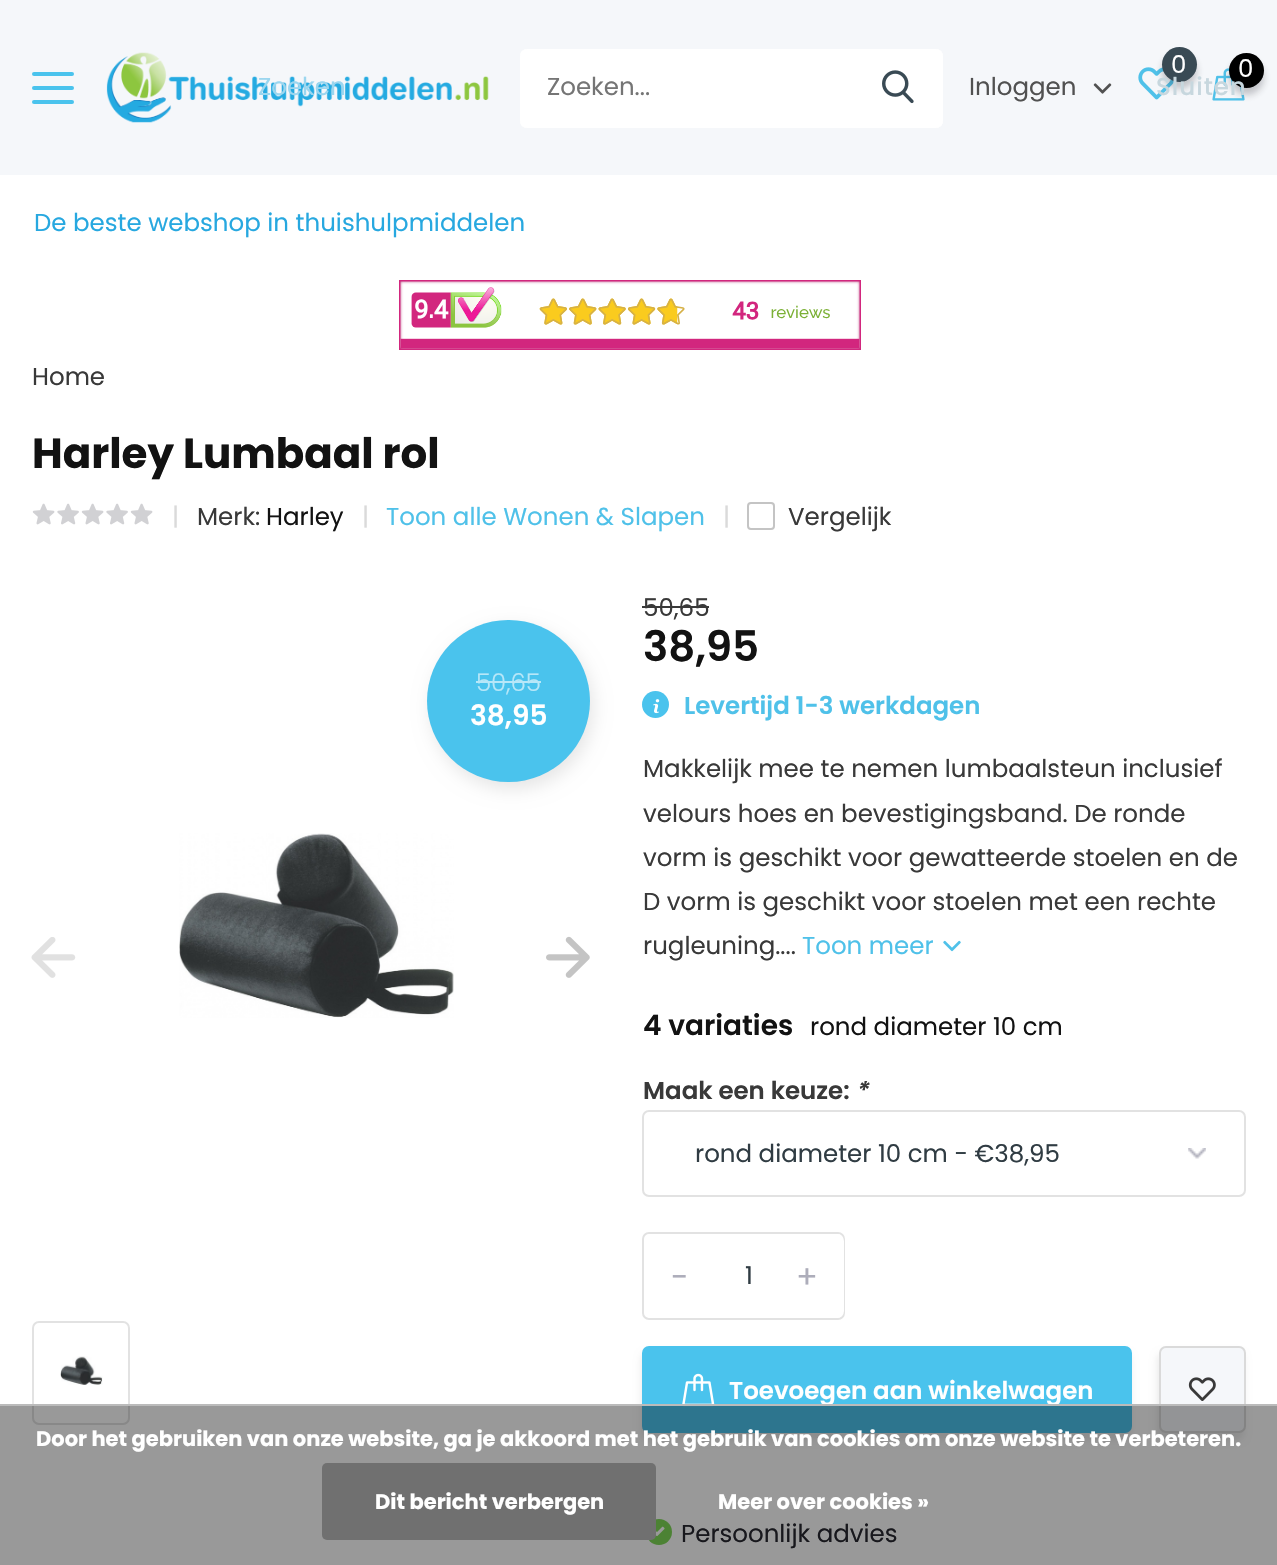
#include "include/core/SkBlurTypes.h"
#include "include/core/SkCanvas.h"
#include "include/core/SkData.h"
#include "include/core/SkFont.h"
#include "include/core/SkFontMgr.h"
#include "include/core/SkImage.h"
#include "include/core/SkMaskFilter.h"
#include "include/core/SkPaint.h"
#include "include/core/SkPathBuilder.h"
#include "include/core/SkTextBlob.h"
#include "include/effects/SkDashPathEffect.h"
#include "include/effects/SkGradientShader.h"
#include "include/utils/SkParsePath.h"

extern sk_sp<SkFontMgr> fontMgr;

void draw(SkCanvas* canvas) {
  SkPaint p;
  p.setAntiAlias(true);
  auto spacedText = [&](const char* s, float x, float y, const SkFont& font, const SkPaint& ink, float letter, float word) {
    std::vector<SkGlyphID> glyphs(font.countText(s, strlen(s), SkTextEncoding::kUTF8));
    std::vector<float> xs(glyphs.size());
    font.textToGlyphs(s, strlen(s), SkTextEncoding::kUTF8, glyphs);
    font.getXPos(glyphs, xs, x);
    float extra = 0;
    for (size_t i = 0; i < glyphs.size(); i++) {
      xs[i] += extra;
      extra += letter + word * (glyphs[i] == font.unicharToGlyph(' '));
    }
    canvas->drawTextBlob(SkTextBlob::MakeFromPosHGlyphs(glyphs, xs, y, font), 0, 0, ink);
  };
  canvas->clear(SK_ColorWHITE);
  p.setColor(SkColorSetRGB(245, 247, 250));
  canvas->drawRect(SkRect::MakeLTRB(0, 0, 1277, 175), p);
  p.setColor(SkColorSetRGB(74, 195, 237));
  canvas->drawRoundRect(SkRect::MakeLTRB(32, 72, 74, 76), 2, 2, p);
  canvas->drawRoundRect(SkRect::MakeLTRB(32, 86, 74, 90), 2, 2, p);
  canvas->drawRoundRect(SkRect::MakeLTRB(32, 100, 74, 104), 2, 2, p);
  canvas->drawImageRect(SkImages::DeferredFromEncodedData(SkData::MakeFromFileName("images/1.png")), SkRect::MakeLTRB(106, 52, 489, 123), SkSamplingOptions());
  canvas->drawImageRect(SkImages::DeferredFromEncodedData(SkData::MakeFromFileName("images/2.png")), SkRect::MakeLTRB(1138, 67, 1175, 100), SkSamplingOptions());
  p.setColor(SkColorSetARGB(64, 40, 40, 48));
  p.setMaskFilter(SkMaskFilter::MakeBlur(kNormal_SkBlurStyle, 3.5f));
  canvas->drawRoundRect(SkRect::MakeLTRB(1162, 54, 1197, 89), 17.5f, 17.5f, p);
  p.setMaskFilter(nullptr);
  p.setColor(SkColorSetRGB(57, 74, 84));
  canvas->drawCircle(1179.5f, 64.5f, 17.5f, p);
  canvas->drawImageRect(SkImages::DeferredFromEncodedData(SkData::MakeFromFileName("images/3.png")), SkRect::MakeLTRB(1212, 68, 1245, 101), SkSamplingOptions());
  p.setColor(SkColorSetARGB(64, 40, 40, 48));
  p.setMaskFilter(SkMaskFilter::MakeBlur(kNormal_SkBlurStyle, 3.5f));
  canvas->drawRoundRect(SkRect::MakeLTRB(1229, 60, 1264, 95), 17.5f, 17.5f, p);
  p.setMaskFilter(nullptr);
  p.setColor(SK_ColorBLACK);
  canvas->drawCircle(1246.5f, 70.5f, 17.5f, p);
  p.setColor(SK_ColorWHITE);
  canvas->drawPath(SkPathBuilder().moveTo(527, 49).lineTo(856, 49).lineTo(856, 128).lineTo(527, 128).cubicTo(523, 128, 520, 125, 520, 121).lineTo(520, 56).cubicTo(520, 52, 523, 49, 527, 49).close().detach(), p);
  canvas->drawPath(SkPathBuilder(SkPathFillType::kEvenOdd).moveTo(527, 49).lineTo(856, 49).lineTo(856, 128).lineTo(527, 128).cubicTo(523, 128, 520, 125, 520, 121).lineTo(520, 56).cubicTo(520, 52, 523, 49, 527, 49).close().moveTo(527, 51).lineTo(856, 51).lineTo(856, 126).lineTo(527, 126).cubicTo(524, 126, 522, 124, 522, 121).lineTo(522, 56).cubicTo(522, 53, 524, 51, 527, 51).close().detach(), p);
  canvas->drawPath(SkPathBuilder().moveTo(856, 49).lineTo(936, 49).cubicTo(940, 49, 943, 52, 943, 56).lineTo(943, 121).cubicTo(943, 125, 940, 128, 936, 128).lineTo(856, 128).close().detach(), p);
  canvas->drawPath(SkPathBuilder(SkPathFillType::kEvenOdd).moveTo(856, 49).lineTo(936, 49).cubicTo(940, 49, 943, 52, 943, 56).lineTo(943, 121).cubicTo(943, 125, 940, 128, 936, 128).lineTo(856, 128).close().moveTo(856, 51).lineTo(936, 51).cubicTo(939, 51, 942, 53, 942, 56).lineTo(942, 121).cubicTo(942, 124, 939, 126, 936, 126).lineTo(856, 126).close().detach(), p);
  canvas->drawImageRect(SkImages::DeferredFromEncodedData(SkData::MakeFromFileName("images/4.png")), SkRect::MakeLTRB(882, 70, 914, 104), SkSamplingOptions());
  canvas->drawImageRect(SkImages::DeferredFromEncodedData(SkData::MakeFromFileName("images/5.png")), SkRect::MakeLTRB(1093, 83, 1112, 94), SkSamplingOptions());
  canvas->drawImageRect(SkImages::DeferredFromEncodedData(SkData::MakeFromFileName("images/6.png")), SkRect::MakeLTRB(399, 280, 861, 350), SkSamplingOptions());
  canvas->drawImageRect(SkImages::DeferredFromEncodedData(SkData::MakeFromFileName("images/7.png")), SkRect::MakeLTRB(32, 503, 55, 525), SkSamplingOptions());
  canvas->drawImageRect(SkImages::DeferredFromEncodedData(SkData::MakeFromFileName("images/8.png")), SkRect::MakeLTRB(57, 503, 79, 525), SkSamplingOptions());
  canvas->drawImageRect(SkImages::DeferredFromEncodedData(SkData::MakeFromFileName("images/7.png")), SkRect::MakeLTRB(81, 503, 104, 525), SkSamplingOptions());
  canvas->drawImageRect(SkImages::DeferredFromEncodedData(SkData::MakeFromFileName("images/8.png")), SkRect::MakeLTRB(106, 503, 128, 525), SkSamplingOptions());
  canvas->drawImageRect(SkImages::DeferredFromEncodedData(SkData::MakeFromFileName("images/7.png")), SkRect::MakeLTRB(130, 503, 153, 525), SkSamplingOptions());
  p.setStyle(SkPaint::kStroke_Style);
  p.setStrokeWidth(2);
  p.setColor(SkColorSetRGB(196, 196, 196));
  canvas->drawRoundRect(SkRect::MakeLTRB(748, 503, 774, 529), 3, 3, p);
  p.setStyle(SkPaint::kFill_Style);
  p.setColor(SkColorSetARGB(26, 0, 0, 0));
  p.setMaskFilter(SkMaskFilter::MakeBlur(kNormal_SkBlurStyle, 9));
  canvas->drawRoundRect(SkRect::MakeLTRB(431, 627, 593, 789), 81, 81, p);
  p.setMaskFilter(nullptr);
  p.setColor(SkColorSetRGB(74, 195, 237));
  canvas->drawRoundRect(SkRect::MakeLTRB(427, 620, 590, 782), 81, 81, p);
  p.setColor(SkColorSetRGB(183, 231, 248));
  canvas->drawRect(SkRect::MakeLTRB(476, 681, 541, 683), p);
  canvas->drawImageRect(SkImages::DeferredFromEncodedData(SkData::MakeFromFileName("images/9.png")), SkRect::MakeLTRB(179, 833, 454, 1018), SkSamplingOptions());
  canvas->drawImageRect(SkImages::DeferredFromEncodedData(SkData::MakeFromFileName("images/10.png")), SkRect::MakeLTRB(31, 937, 76, 978), SkSamplingOptions());
  canvas->drawImageRect(SkImages::DeferredFromEncodedData(SkData::MakeFromFileName("images/11.png")), SkRect::MakeLTRB(546, 936, 590, 978), SkSamplingOptions());
  p.setStyle(SkPaint::kStroke_Style);
  p.setColor(SkColorSetRGB(226, 226, 226));
  canvas->drawRoundRect(SkRect::MakeLTRB(33, 1322, 129, 1424), 6, 6, p);
  canvas->drawImageRect(SkImages::DeferredFromEncodedData(SkData::MakeFromFileName("images/12.png")), SkRect::MakeLTRB(60, 1356, 103, 1385), SkSamplingOptions());
  p.setStyle(SkPaint::kFill_Style);
  p.setColor(SkColorSetRGB(57, 57, 57));
  canvas->drawRect(SkRect::MakeLTRB(642, 606, 709, 608), p);
  p.setColor(SkColorSetRGB(74, 195, 237));
  canvas->drawCircle(655.5f, 704.5f, 13.5f, p);
  canvas->drawImageRect(SkImages::DeferredFromEncodedData(SkData::MakeFromFileName("images/13.png")), SkRect::MakeLTRB(653, 699, 660, 714), SkSamplingOptions());
  canvas->drawImageRect(SkImages::DeferredFromEncodedData(SkData::MakeFromFileName("images/14.png")), SkRect::MakeLTRB(943, 940, 961, 952), SkSamplingOptions());
  canvas->drawImageRect(SkImages::DeferredFromEncodedData(SkData::MakeFromFileName("images/15.png")), SkRect::MakeLTRB(1188, 1148, 1206, 1159), SkSamplingOptions());
  p.setStyle(SkPaint::kStroke_Style);
  p.setColor(SkColorSetRGB(226, 226, 226));
  canvas->drawRoundRect(SkRect::MakeLTRB(643, 1111, 1245, 1196), 6, 6, p);
  canvas->drawRoundRect(SkRect::MakeLTRB(643, 1233, 844, 1319), 6, 6, p);
  p.setStyle(SkPaint::kFill_Style);
  p.setColor(SK_ColorWHITE);
  canvas->drawRoundRect(SkRect::MakeLTRB(644, 1234, 844, 1318), 7, 7, p);
  p.setColor(SkColorSetARGB(20, 0, 0, 0));
  p.setMaskFilter(SkMaskFilter::MakeBlur(kNormal_SkBlurStyle, 3.5f));
  canvas->drawRoundRect(SkRect::MakeLTRB(641, 1353, 1131, 1440), 7, 7, p);
  p.setMaskFilter(nullptr);
  p.setColor(SkColorSetRGB(74, 195, 237));
  canvas->drawRoundRect(SkRect::MakeLTRB(642, 1346, 1132, 1433), 7, 7, p);
  canvas->drawImageRect(SkImages::DeferredFromEncodedData(SkData::MakeFromFileName("images/16.png")), SkRect::MakeLTRB(682, 1373, 715, 1407), SkSamplingOptions());
  p.setColor(SkColorSetARGB(20, 0, 0, 0));
  p.setMaskFilter(SkMaskFilter::MakeBlur(kNormal_SkBlurStyle, 3.5f));
  canvas->drawRoundRect(SkRect::MakeLTRB(1157, 1353, 1244, 1440), 7, 7, p);
  p.setMaskFilter(nullptr);
  p.setColor(SkColorSetRGB(245, 247, 250));
  canvas->drawRoundRect(SkRect::MakeLTRB(1160, 1347, 1245, 1432), 6, 6, p);
  p.setStyle(SkPaint::kStroke_Style);
  p.setColor(SkColorSetRGB(218, 218, 218));
  canvas->drawRoundRect(SkRect::MakeLTRB(1160, 1347, 1245, 1432), 6, 6, p);
  canvas->drawImageRect(SkImages::DeferredFromEncodedData(SkData::MakeFromFileName("images/17.png")), SkRect::MakeLTRB(1188, 1377, 1216, 1401), SkSamplingOptions());
  p.setStyle(SkPaint::kFill_Style);
  p.setColor(SkColorSetRGB(126, 217, 87));
  canvas->drawCircle(659, 1532, 13, p);
  canvas->drawImageRect(SkImages::DeferredFromEncodedData(SkData::MakeFromFileName("images/18.png")), SkRect::MakeLTRB(655, 1526, 665, 1536), SkSamplingOptions());
  SkFont font1(fontMgr->matchFamilyStyle("Poppins", SkFontStyle::Normal()), 24.5f);
  font1.setSubpixel(true);
  p.setColor(SK_ColorWHITE);
  canvas->drawString("0", 1171, 73, font1, p);
  canvas->drawString("0", 1238, 77, font1, p);
  p.setColor(SkColorSetRGB(117, 117, 117));
  canvas->drawString("Zoeken...", 547, 95, font1, p);
  p.setColor(SkColorSetRGB(81, 81, 81));
  canvas->drawString("Inloggen", 969, 95, font1, p);
  p.setColor(SkColorSetRGB(155, 214, 239));
  canvas->drawString("Zoeken", 258, 95, font1, p);
  SkFont font2(fontMgr->matchFamilyStyle("Poppins", SkFontStyle(500, SkFontStyle::kNormal_Width, SkFontStyle::kUpright_Slant)), 24.5f);
  font2.setSubpixel(true);
  p.setColor(SkColorSetRGB(199, 215, 222));
  spacedText("Sluiten", 1156, 95, font2, p, 1, 0);
  p.setColor(SkColorSetRGB(39, 168, 224));
  canvas->drawString("De beste webshop in thuishulpmiddelen", 34, 231, font1, p);
  p.setColor(SkColorSetRGB(57, 57, 57));
  canvas->drawString("Home", 32, 385, font1, p);
  SkFont font3(fontMgr->matchFamilyStyle("Poppins", SkFontStyle::Bold()), 42);
  font3.setSubpixel(true);
  p.setColor(SkColorSetRGB(18, 18, 18));
  canvas->drawString("Harley Lumbaal rol", 32, 468, font3, p);
  p.setColor(SkColorSetRGB(218, 218, 218));
  canvas->drawString("|", 172, 525, font1, p);
  p.setColor(SkColorSetRGB(57, 57, 57));
  canvas->drawString("Merk:", 197, 525, font1, p);
  p.setColor(SkColorSetRGB(18, 18, 18));
  canvas->drawString("Harley", 266, 525, font1, p);
  p.setColor(SkColorSetRGB(218, 218, 218));
  canvas->drawString("|", 362, 525, font1, p);
  p.setColor(SkColorSetRGB(79, 193, 233));
  canvas->drawString("Toon alle Wonen & Slapen", 386, 525, font1, p);
  p.setColor(SkColorSetRGB(218, 218, 218));
  canvas->drawString("|", 723, 525, font1, p);
  p.setColor(SkColorSetRGB(57, 57, 57));
  canvas->drawString("Vergelijk", 788, 525, font1, p);
  SkFont font4(fontMgr->matchFamilyStyle("Poppins", SkFontStyle(300, SkFontStyle::kNormal_Width, SkFontStyle::kUpright_Slant)), 24.5f);
  font4.setSubpixel(true);
  p.setColor(SkColorSetRGB(183, 231, 248));
  canvas->drawString("50,65", 476, 691, font4, p);
  SkFont font5(fontMgr->matchFamilyStyle("Poppins", SkFontStyle(600, SkFontStyle::kNormal_Width, SkFontStyle::kUpright_Slant)), 28);
  font5.setSubpixel(true);
  p.setColor(SK_ColorWHITE);
  canvas->drawString("38,95", 470, 725, font5, p);
  p.setColor(SkColorSetRGB(57, 57, 57));
  canvas->drawString("50,65", 643, 616, font1, p);
  SkFont font6(fontMgr->matchFamilyStyle("Poppins", SkFontStyle(600, SkFontStyle::kNormal_Width, SkFontStyle::kUpright_Slant)), 42);
  font6.setSubpixel(true);
  p.setColor(SkColorSetRGB(18, 18, 18));
  canvas->drawString("38,95", 643, 661, font6, p);
  SkFont font7(fontMgr->matchFamilyStyle("Poppins", SkFontStyle(600, SkFontStyle::kNormal_Width, SkFontStyle::kUpright_Slant)), 24.5f);
  font7.setSubpixel(true);
  p.setColor(SkColorSetRGB(79, 193, 233));
  canvas->drawString("Levertijd 1-3 werkdagen", 684, 714, font7, p);
  p.setColor(SkColorSetRGB(57, 57, 57));
  canvas->drawString("Makkelijk mee te nemen lumbaalsteun inclusief", 643, 777, font1, p);
  canvas->drawString("velours hoes en bevestigingsband. De ronde", 643, 822, font1, p);
  canvas->drawString("vorm is geschikt voor gewatteerde stoelen en de", 643, 866, font1, p);
  canvas->drawString("D vorm is geschikt voor stoelen met een rechte", 643, 910, font1, p);
  canvas->drawString("rugleuning....", 643, 954, font1, p);
  p.setColor(SkColorSetRGB(79, 193, 233));
  canvas->drawString("Toon meer", 802, 954, font1, p);
  p.setColor(SkColorSetRGB(18, 18, 18));
  canvas->drawString("4 variaties", 643, 1035, font5, p);
  canvas->drawString("rond diameter 10 cm", 810, 1035, font1, p);
  p.setColor(SkColorSetRGB(57, 57, 57));
  canvas->drawString("Maak een keuze:", 643, 1099, font7, p);
  SkFont font8(fontMgr->matchFamilyStyle("Poppins", SkFontStyle(600, SkFontStyle::kNormal_Width, SkFontStyle::kItalic_Slant)), 24.5f);
  font8.setSubpixel(true);
  canvas->drawString("*", 855, 1099, font8, p);
  p.setColor(SkColorSetRGB(48, 60, 67));
  canvas->drawString("rond diameter 10 cm - €38,95", 695, 1162, font1, p);
  canvas->drawString("1", 745, 1284, font1, p);
  SkFont font9(fontMgr->matchFamilyStyle("Poppins", SkFontStyle::Normal()), 32);
  font9.setSubpixel(true);
  p.setColor(SkColorSetRGB(173, 173, 186));
  canvas->drawString("-", 671, 1288, font9, p);
  canvas->drawString("+", 796, 1288, font9, p);
  p.setColor(SK_ColorWHITE);
  canvas->drawString("Toevoegen aan winkelwagen", 729, 1399, font7, p);
  p.setColor(SkColorSetRGB(40, 40, 48));
  canvas->drawString("Persoonlijk advies", 681, 1542, font1, p);
  p.setColor(SkColorSetARGB(102, 0, 0, 0));
  canvas->drawRect(SkRect::MakeLTRB(0, 1406, 1277, 1565), p);
  p.setColor(SkColorSetRGB(187, 187, 187));
  canvas->drawRect(SkRect::MakeLTRB(0, 1404, 1277, 1406), p);
  SkFont font10(fontMgr->matchFamilyStyle("Poppins", SkFontStyle::Bold()), 21);
  font10.setSubpixel(true);
  p.setColor(SK_ColorWHITE);
  canvas->drawString("Door het gebruiken van onze website, ga je akkoord met het gebruik van cookies om onze website te verbeteren.", 36, 1446, font10, p);
  p.setColor(SkColorSetRGB(112, 112, 112));
  canvas->drawRoundRect(SkRect::MakeLTRB(322, 1463, 656, 1540), 5, 5, p);
  p.setColor(SK_ColorWHITE);
  canvas->drawString("Dit bericht verbergen", 375, 1509, font10, p);
  canvas->drawString("Meer over cookies »", 718, 1509, font10, p);
}
